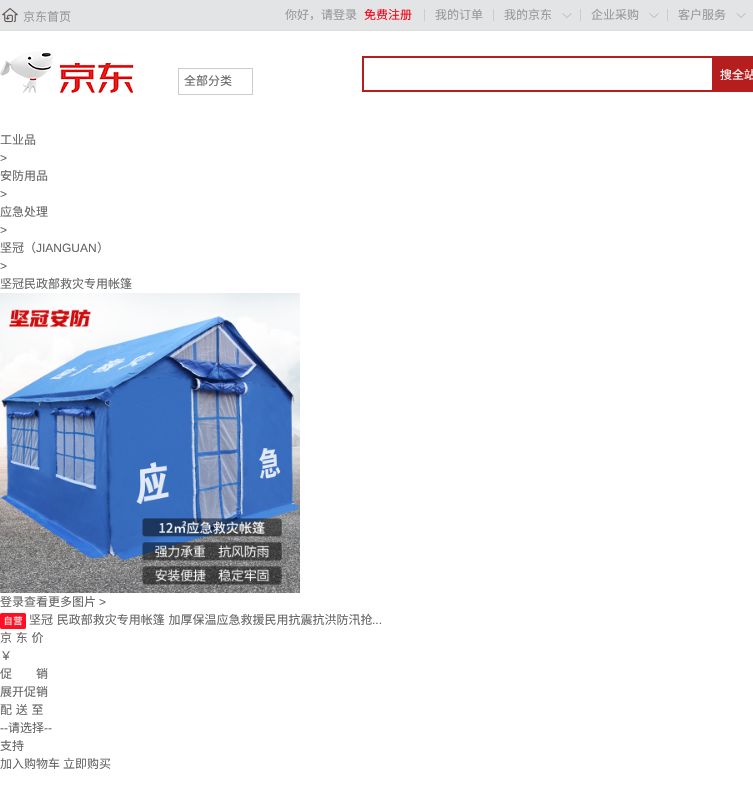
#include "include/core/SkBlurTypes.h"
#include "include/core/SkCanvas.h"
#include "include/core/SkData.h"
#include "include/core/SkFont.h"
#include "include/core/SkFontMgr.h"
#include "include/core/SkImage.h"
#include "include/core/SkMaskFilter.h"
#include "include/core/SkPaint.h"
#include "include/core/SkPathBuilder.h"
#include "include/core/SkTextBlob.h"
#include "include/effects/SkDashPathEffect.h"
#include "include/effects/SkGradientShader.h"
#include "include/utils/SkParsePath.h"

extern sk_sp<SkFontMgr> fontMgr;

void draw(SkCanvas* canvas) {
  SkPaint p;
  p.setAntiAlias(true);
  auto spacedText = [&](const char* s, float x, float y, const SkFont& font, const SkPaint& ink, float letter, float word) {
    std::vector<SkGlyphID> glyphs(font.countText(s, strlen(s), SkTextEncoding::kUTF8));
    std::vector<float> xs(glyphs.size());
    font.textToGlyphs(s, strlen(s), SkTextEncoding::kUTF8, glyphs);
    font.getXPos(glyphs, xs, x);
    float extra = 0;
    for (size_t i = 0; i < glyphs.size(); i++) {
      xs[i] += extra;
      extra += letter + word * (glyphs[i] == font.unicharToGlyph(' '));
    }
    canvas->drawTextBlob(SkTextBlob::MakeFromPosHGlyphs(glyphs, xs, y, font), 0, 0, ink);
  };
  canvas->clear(SK_ColorWHITE);
  p.setColor(SkColorSetRGB(227, 228, 229));
  canvas->drawRect(SkRect::MakeLTRB(0, 0, 753, 30), p);
  p.setColor(SkColorSetRGB(221, 221, 221));
  canvas->drawRect(SkRect::MakeLTRB(0, 30, 753, 31), p);
  canvas->drawImageRect(SkImages::DeferredFromEncodedData(SkData::MakeFromFileName("images/1.png")), SkRect::MakeLTRB(2, 8, 18, 23), SkSamplingOptions());
  p.setColor(SkColorSetRGB(204, 204, 204));
  canvas->drawRect(SkRect::MakeLTRB(424, 9, 425, 21), p);
  canvas->drawRect(SkRect::MakeLTRB(493, 9, 494, 21), p);
  canvas->drawImageRect(SkImages::DeferredFromEncodedData(SkData::MakeFromFileName("images/2.png")), SkRect::MakeLTRB(562, 13, 572, 18), SkSamplingOptions());
  canvas->drawRect(SkRect::MakeLTRB(580, 9, 581, 21), p);
  canvas->drawImageRect(SkImages::DeferredFromEncodedData(SkData::MakeFromFileName("images/2.png")), SkRect::MakeLTRB(649, 13, 659, 18), SkSamplingOptions());
  canvas->drawRect(SkRect::MakeLTRB(667, 9, 668, 21), p);
  canvas->drawImageRect(SkImages::DeferredFromEncodedData(SkData::MakeFromFileName("images/2.png")), SkRect::MakeLTRB(736, 13, 746, 18), SkSamplingOptions());
  canvas->drawImageRect(SkImages::DeferredFromEncodedData(SkData::MakeFromFileName("images/3.png")), SkRect::MakeLTRB(0, 51, 134, 93), SkSamplingOptions());
  p.setStyle(SkPaint::kStroke_Style);
  p.setStrokeWidth(1);
  canvas->drawRect(SkRect::MakeLTRB(178.5f, 68.5f, 252.5f, 94.5f), p);
  p.setStyle(SkPaint::kFill_Style);
  p.setColor(SkColorSetRGB(182, 29, 29));
  canvas->drawRect(SkRect::MakeLTRB(362, 56, 712, 58), p);
  canvas->drawRect(SkRect::MakeLTRB(362, 90, 712, 92), p);
  canvas->drawRect(SkRect::MakeLTRB(362, 56, 364, 92), p);
  canvas->drawRect(SkRect::MakeLTRB(712, 56, 753, 92), p);
  canvas->drawImageRect(SkImages::DeferredFromEncodedData(SkData::MakeFromFileName("images/4.png")), SkRect::MakeLTRB(0, 293, 300, 593), SkSamplingOptions());
  canvas->drawImageRect(SkImages::DeferredFromEncodedData(SkData::MakeFromFileName("images/5.png")), SkRect::MakeLTRB(0, 613, 26, 629), SkSamplingOptions());
  SkFont font1(fontMgr->matchFamilyStyle("Noto Sans CJK SC", SkFontStyle::Normal()), 12);
  font1.setSubpixel(true);
  p.setColor(SkColorSetRGB(153, 153, 153));
  canvas->drawString("京东首页", 23, 21, font1, p);
  canvas->drawString("你好，请登录", 285, 19, font1, p);
  p.setColor(SkColorSetRGB(243, 2, 19));
  canvas->drawString("免费注册", 364, 19, font1, p);
  p.setColor(SkColorSetRGB(153, 153, 153));
  canvas->drawString("我的订单", 435, 19, font1, p);
  canvas->drawString("我的京东", 504, 19, font1, p);
  canvas->drawString("企业采购", 591, 19, font1, p);
  canvas->drawString("客户服务", 678, 19, font1, p);
  p.setColor(SkColorSetRGB(102, 102, 102));
  canvas->drawString("全部分类", 184, 85, font1, p);
  p.setColor(SK_ColorWHITE);
  canvas->drawString("搜全站", 720, 79, font1, p);
  p.setColor(SkColorSetRGB(102, 102, 102));
  canvas->drawString("工业品", 0, 144, font1, p);
  SkFont font2(fontMgr->matchFamilyStyle("Liberation Sans", SkFontStyle::Normal()), 12);
  font2.setSubpixel(true);
  canvas->drawString(">", 0, 162, font2, p);
  canvas->drawString("安防用品", 0, 180, font1, p);
  canvas->drawString(">", 0, 198, font2, p);
  canvas->drawString("应急处理", 0, 216, font1, p);
  canvas->drawString(">", 0, 234, font2, p);
  canvas->drawString("坚冠（", 0, 252, font1, p);
  canvas->drawString("JIANGUAN", 36, 252, font2, p);
  canvas->drawString("）", 97, 252, font1, p);
  canvas->drawString(">", 0, 270, font2, p);
  canvas->drawString("坚冠民政部救灾专用帐篷", 0, 288, font1, p);
  canvas->drawString("登录查看更多图片", 0, 606, font1, p);
  canvas->drawString(">", 99, 606, font2, p);
  spacedText("坚冠 民政部救灾专用帐篷 加厚保温应急救援民用抗震抗洪防汛抢", 29, 624, font1, p, 0, 1);
  canvas->drawString("...", 372, 624, font2, p);
  spacedText("京 东 价", 0, 642, font1, p, 0, 1);
  canvas->drawString("￥", 0, 660, font1, p);
  canvas->drawString("促　　销", 0, 678, font1, p);
  canvas->drawString("展开促销", 0, 696, font1, p);
  spacedText("配 送 至", 0, 714, font1, p, 0, 1);
  canvas->drawString("--", 0, 732, font2, p);
  canvas->drawString("请选择", 8, 732, font1, p);
  canvas->drawString("--", 44, 732, font2, p);
  canvas->drawString("支持", 0, 750, font1, p);
  canvas->drawString("加入购物车", 0, 768, font1, p);
  canvas->drawString("立即购买", 63, 768, font1, p);
}
